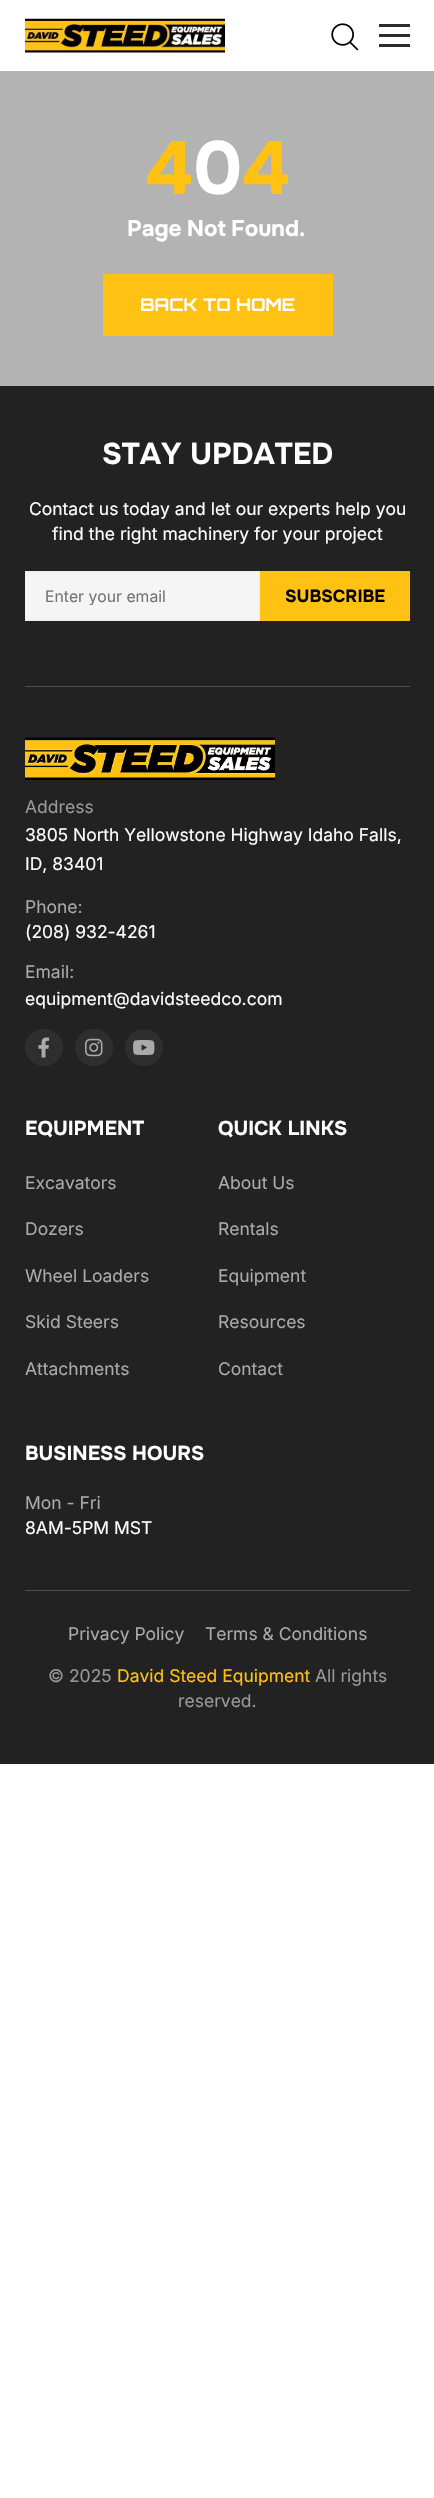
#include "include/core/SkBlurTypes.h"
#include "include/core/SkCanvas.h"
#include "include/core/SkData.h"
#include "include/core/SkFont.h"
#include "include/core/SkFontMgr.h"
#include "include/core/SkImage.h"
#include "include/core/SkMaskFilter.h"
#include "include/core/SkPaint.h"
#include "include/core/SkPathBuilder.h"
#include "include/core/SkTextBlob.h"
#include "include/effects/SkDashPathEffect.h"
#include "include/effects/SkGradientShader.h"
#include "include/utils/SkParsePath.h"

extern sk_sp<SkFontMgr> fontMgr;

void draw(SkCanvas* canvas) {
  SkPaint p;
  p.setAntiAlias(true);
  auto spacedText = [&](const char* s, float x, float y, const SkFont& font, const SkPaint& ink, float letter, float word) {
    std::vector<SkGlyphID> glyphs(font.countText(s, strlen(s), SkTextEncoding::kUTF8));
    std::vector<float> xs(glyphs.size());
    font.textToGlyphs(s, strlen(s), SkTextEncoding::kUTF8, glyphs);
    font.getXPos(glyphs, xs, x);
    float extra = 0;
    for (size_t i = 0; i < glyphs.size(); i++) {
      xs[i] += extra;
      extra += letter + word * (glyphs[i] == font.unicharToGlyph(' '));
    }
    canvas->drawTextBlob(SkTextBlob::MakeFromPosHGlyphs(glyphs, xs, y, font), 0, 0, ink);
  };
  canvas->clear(SK_ColorWHITE);
  canvas->drawImageRect(SkImages::DeferredFromEncodedData(SkData::MakeFromFileName("images/1.png")), SkRect::MakeLTRB(25, 18, 225, 53), SkSamplingOptions());
  canvas->drawImageRect(SkImages::DeferredFromEncodedData(SkData::MakeFromFileName("images/2.png")), SkRect::MakeLTRB(331, 23, 359, 51), SkSamplingOptions());
  p.setColor(SkColorSetRGB(44, 44, 44));
  canvas->drawRect(SkRect::MakeLTRB(379, 34, 410, 37), p);
  canvas->drawRect(SkRect::MakeLTRB(379, 24, 410, 27), p);
  canvas->drawRect(SkRect::MakeLTRB(379, 44, 410, 47), p);
  p.setColor(SkColorSetRGB(179, 179, 179));
  canvas->drawRect(SkRect::MakeLTRB(0, 71, 434, 386), p);
  p.setColor(SkColorSetRGB(255, 194, 18));
  canvas->drawRect(SkRect::MakeLTRB(103, 274, 333, 336), p);
  p.setColor(SkColorSetRGB(34, 34, 34));
  canvas->drawRect(SkRect::MakeLTRB(0, 386, 434, 1764), p);
  p.setColor(SkColorSetRGB(245, 245, 245));
  canvas->drawRect(SkRect::MakeLTRB(25.5f, 571.5f, 259.5f, 620.5f), p);
  p.setStyle(SkPaint::kStroke_Style);
  p.setStrokeWidth(1);
  p.setColor(SkColorSetRGB(238, 238, 238));
  canvas->drawRect(SkRect::MakeLTRB(25.5f, 571.5f, 259.5f, 620.5f), p);
  p.setStyle(SkPaint::kFill_Style);
  p.setColor(SkColorSetRGB(255, 194, 18));
  canvas->drawRect(SkRect::MakeLTRB(260, 571, 410, 621), p);
  p.setColor(SkColorSetRGB(78, 78, 78));
  canvas->drawRect(SkRect::MakeLTRB(25, 686, 410, 687), p);
  canvas->drawImageRect(SkImages::DeferredFromEncodedData(SkData::MakeFromFileName("images/3.png")), SkRect::MakeLTRB(25, 737, 275, 780), SkSamplingOptions());
  p.setColor(SkColorSetRGB(46, 46, 46));
  canvas->drawRoundRect(SkRect::MakeLTRB(25, 1029, 63, 1066), 18.5f, 18.5f, p);
  canvas->drawImageRect(SkImages::DeferredFromEncodedData(SkData::MakeFromFileName("images/4.png")), SkRect::MakeLTRB(38, 1037, 50, 1058), SkSamplingOptions());
  canvas->drawRoundRect(SkRect::MakeLTRB(75, 1029, 113, 1066), 18.5f, 18.5f, p);
  canvas->drawImageRect(SkImages::DeferredFromEncodedData(SkData::MakeFromFileName("images/5.png")), SkRect::MakeLTRB(85, 1038, 103, 1057), SkSamplingOptions());
  canvas->drawRoundRect(SkRect::MakeLTRB(125, 1029, 163, 1066), 18.5f, 18.5f, p);
  canvas->drawImageRect(SkImages::DeferredFromEncodedData(SkData::MakeFromFileName("images/6.png")), SkRect::MakeLTRB(133, 1040, 155, 1055), SkSamplingOptions());
  p.setColor(SkColorSetRGB(78, 78, 78));
  canvas->drawRect(SkRect::MakeLTRB(25, 1590, 410, 1591), p);
  SkFont font1(fontMgr->matchFamilyStyle("Onest", SkFontStyle::Bold()), 75);
  font1.setSubpixel(true);
  p.setColor(SkColorSetRGB(255, 194, 18));
  canvas->drawString("4", 145, 194, font1, p);
  p.setColor(SK_ColorWHITE);
  canvas->drawString("0", 193, 194, font1, p);
  p.setColor(SkColorSetRGB(255, 194, 18));
  canvas->drawString("4", 242, 194, font1, p);
  SkFont font2(fontMgr->matchFamilyStyle("Onest", SkFontStyle::Bold()), 22.5f);
  font2.setSubpixel(true);
  p.setColor(SK_ColorWHITE);
  spacedText("Page Not Found.", 127, 236, font2, p, 0, -1);
  SkFont font3(fontMgr->matchFamilyStyle("Orbitron", SkFontStyle::Bold()), 17.5f);
  font3.setSubpixel(true);
  canvas->drawString("BACK TO HOME", 140, 311, font3, p);
  SkFont font4(fontMgr->matchFamilyStyle("Onest", SkFontStyle::Bold()), 30);
  font4.setSubpixel(true);
  canvas->drawString("STAY UPDATED", 102, 464, font4, p);
  SkFont font5(fontMgr->matchFamilyStyle("Inter", SkFontStyle::Normal()), 17.5f);
  font5.setSubpixel(true);
  canvas->drawString("Contact us today and let our experts help you", 29, 515, font5, p);
  canvas->drawString("find the right machinery for your project", 52, 540, font5, p);
  canvas->save();
  canvas->clipRect(SkRect::MakeLTRB(45, 586, 240, 605));
  SkFont font6(fontMgr->matchFamilyStyle("Inter", SkFontStyle::Normal()), 15.75f);
  font6.setSubpixel(true);
  p.setColor(SkColorSetRGB(117, 117, 117));
  canvas->drawString("Enter your email", 45, 602, font6, p);
  canvas->restore();
  SkFont font7(fontMgr->matchFamilyStyle("Onest", SkFontStyle::Bold()), 17.5f);
  font7.setSubpixel(true);
  p.setColor(SK_ColorBLACK);
  canvas->drawString("SUBSCRIBE", 285, 602, font7, p);
  p.setColor(SkColorSetRGB(153, 153, 153));
  canvas->drawString("Address", 25, 813, font5, p);
  p.setColor(SK_ColorWHITE);
  canvas->drawString("3805 North Yellowstone Highway Idaho Falls,", 25, 841, font5, p);
  canvas->drawString("ID, 83401", 25, 870, font5, p);
  p.setColor(SkColorSetRGB(170, 170, 170));
  canvas->drawString("Phone:", 25, 913, font5, p);
  p.setColor(SK_ColorWHITE);
  canvas->drawString("(208) 932-4261", 25, 938, font5, p);
  p.setColor(SkColorSetRGB(170, 170, 170));
  canvas->drawString("Email:", 25, 978, font5, p);
  p.setColor(SK_ColorWHITE);
  canvas->drawString("equipment@davidsteedco.com", 25, 1005, font5, p);
  SkFont font8(fontMgr->matchFamilyStyle("Onest", SkFontStyle::Bold()), 20);
  font8.setSubpixel(true);
  canvas->drawString("EQUIPMENT", 25, 1135, font8, p);
  p.setColor(SkColorSetRGB(170, 170, 170));
  canvas->drawString("Excavators", 25, 1189, font5, p);
  canvas->drawString("Dozers", 25, 1235, font5, p);
  canvas->drawString("Wheel Loaders", 25, 1282, font5, p);
  canvas->drawString("Skid Steers", 25, 1328, font5, p);
  canvas->drawString("Attachments", 25, 1375, font5, p);
  p.setColor(SK_ColorWHITE);
  canvas->drawString("QUICK LINKS", 218, 1135, font8, p);
  p.setColor(SkColorSetRGB(170, 170, 170));
  canvas->drawString("About Us", 218, 1189, font5, p);
  canvas->drawString("Rentals", 218, 1235, font5, p);
  canvas->drawString("Equipment", 218, 1282, font5, p);
  canvas->drawString("Resources", 218, 1328, font5, p);
  canvas->drawString("Contact", 218, 1375, font5, p);
  p.setColor(SK_ColorWHITE);
  canvas->drawString("BUSINESS HOURS", 25, 1460, font8, p);
  p.setColor(SkColorSetRGB(170, 170, 170));
  canvas->drawString("Mon - Fri", 25, 1509, font5, p);
  p.setColor(SK_ColorWHITE);
  canvas->drawString("8AM-5PM MST", 25, 1534, font5, p);
  p.setColor(SkColorSetRGB(170, 170, 170));
  canvas->drawString("Privacy Policy", 68, 1640, font5, p);
  canvas->drawString("Terms & Conditions", 205, 1640, font5, p);
  p.setColor(SkColorSetRGB(153, 153, 153));
  canvas->drawString("© 2025", 48, 1682, font5, p);
  p.setColor(SkColorSetRGB(255, 194, 18));
  canvas->drawString("David Steed Equipment", 117, 1682, font5, p);
  p.setColor(SkColorSetRGB(153, 153, 153));
  canvas->drawString("All rights", 315, 1682, font5, p);
  canvas->drawString("reserved.", 178, 1707, font5, p);
}
